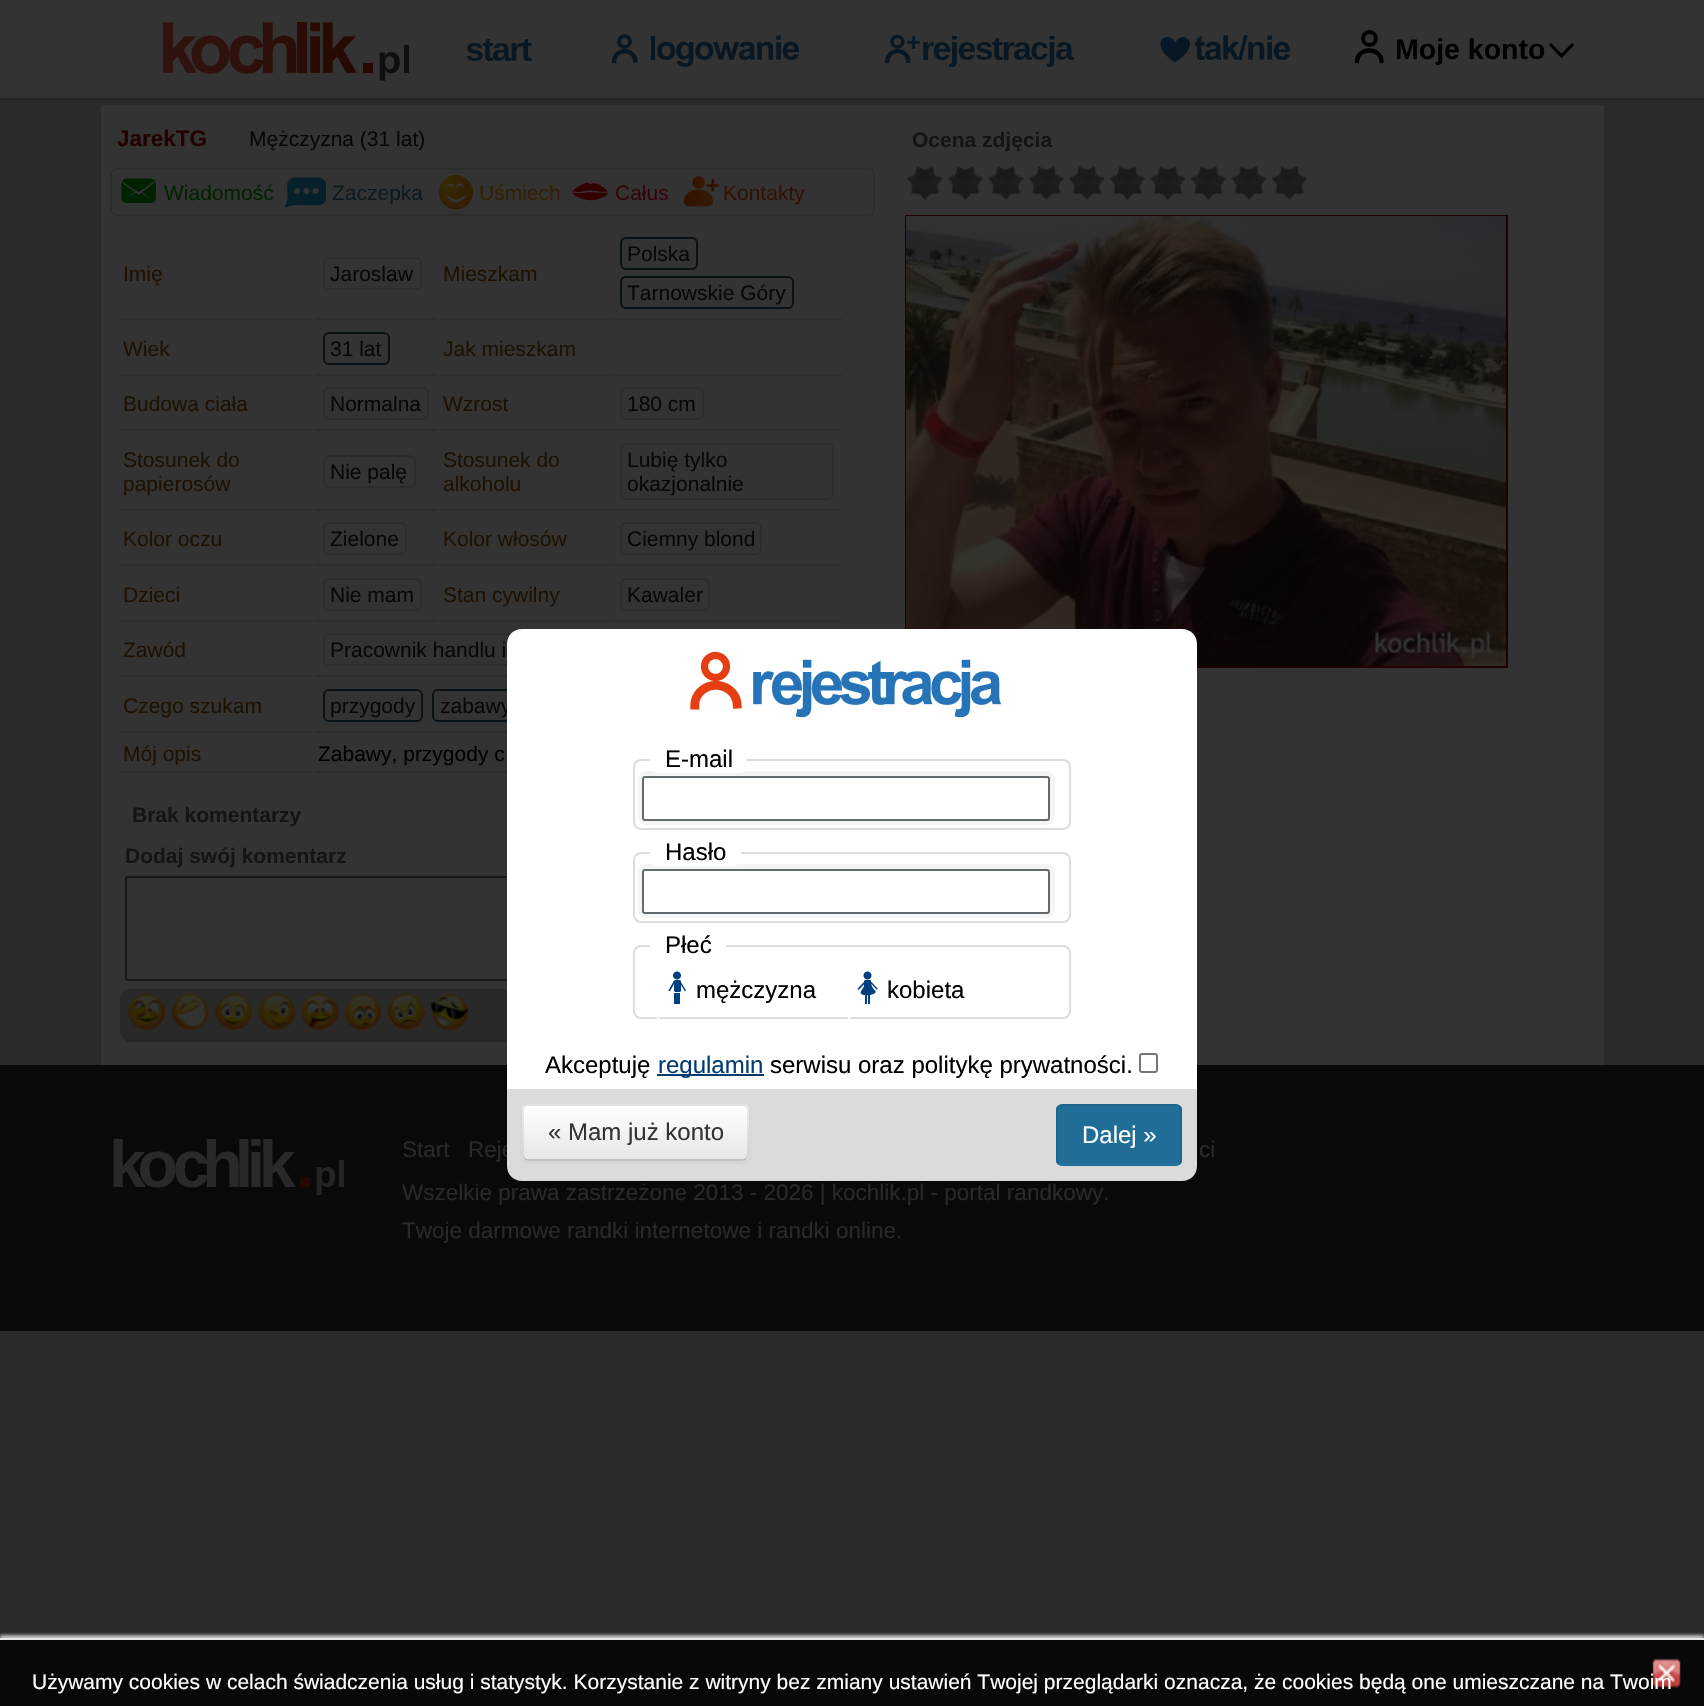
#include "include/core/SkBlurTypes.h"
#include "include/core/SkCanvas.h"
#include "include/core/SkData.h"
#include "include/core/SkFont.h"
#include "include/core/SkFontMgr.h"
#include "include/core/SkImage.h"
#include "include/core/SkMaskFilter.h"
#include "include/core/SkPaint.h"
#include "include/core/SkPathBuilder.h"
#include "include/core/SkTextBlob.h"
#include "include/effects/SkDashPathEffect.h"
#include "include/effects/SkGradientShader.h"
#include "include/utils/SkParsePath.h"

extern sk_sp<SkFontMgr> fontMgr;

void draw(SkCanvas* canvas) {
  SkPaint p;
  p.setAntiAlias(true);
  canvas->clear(SkColorSetRGB(42, 42, 42));
  p.setColor(SkColorSetRGB(51, 51, 51));
  canvas->drawRect(SkRect::MakeLTRB(0, 0, 1704, 98), p);
  p.setColor(SkColorSetRGB(38, 38, 38));
  canvas->drawRect(SkRect::MakeLTRB(0, 98, 1704, 100), p);
  canvas->drawImageRect(SkImages::DeferredFromEncodedData(SkData::MakeFromFileName("images/1.png")), SkRect::MakeLTRB(163, 22, 409, 81), SkSamplingOptions());
  canvas->drawImageRect(SkImages::DeferredFromEncodedData(SkData::MakeFromFileName("images/2.png")), SkRect::MakeLTRB(466, 39, 532, 61), SkSamplingOptions());
  canvas->drawImageRect(SkImages::DeferredFromEncodedData(SkData::MakeFromFileName("images/3.png")), SkRect::MakeLTRB(611, 34, 799, 67), SkSamplingOptions());
  canvas->drawImageRect(SkImages::DeferredFromEncodedData(SkData::MakeFromFileName("images/4.png")), SkRect::MakeLTRB(884, 34, 1075, 67), SkSamplingOptions());
  canvas->drawImageRect(SkImages::DeferredFromEncodedData(SkData::MakeFromFileName("images/5.png")), SkRect::MakeLTRB(1160, 35, 1291, 63), SkSamplingOptions());
  p.setStyle(SkPaint::kStroke_Style);
  p.setStrokeWidth(3.8f);
  p.setColor(SK_ColorBLACK);
  canvas->drawCircle(1369.5f, 38.5f, 6.5f, p);
  p.setStrokeWidth(4.3f);
  p.setStrokeCap(SkPaint::kSquare_Cap);
  canvas->drawPath(SkPathBuilder().moveTo(1357, 61).cubicTo(1357.5f, 47, 1381, 47, 1381.5f, 61).detach(), p);
  p.setStyle(SkPaint::kFill_Style);
  canvas->drawPath(SkPathBuilder().moveTo(1572, 43).lineTo(1574.5f, 45).lineTo(1561.5f, 58).lineTo(1559.5f, 55.5f).close().detach(), p);
  canvas->drawPath(SkPathBuilder().moveTo(1551, 43).lineTo(1563.5f, 55.5f).lineTo(1561.5f, 58).lineTo(1549, 45).close().detach(), p);
  p.setColor(SkColorSetRGB(51, 51, 51));
  canvas->drawRect(SkRect::MakeLTRB(101, 105, 1604, 1065), p);
  p.setStyle(SkPaint::kStroke_Style);
  p.setStrokeWidth(2);
  p.setStrokeCap(SkPaint::kButt_Cap);
  p.setColor(SkColorSetRGB(44, 44, 44));
  canvas->drawRoundRect(SkRect::MakeLTRB(111, 169, 874, 215), 5, 5, p);
  canvas->drawImageRect(SkImages::DeferredFromEncodedData(SkData::MakeFromFileName("images/6.png")), SkRect::MakeLTRB(121, 178, 156, 203), SkSamplingOptions());
  canvas->drawImageRect(SkImages::DeferredFromEncodedData(SkData::MakeFromFileName("images/7.png")), SkRect::MakeLTRB(284, 177, 327, 208), SkSamplingOptions());
  canvas->drawImageRect(SkImages::DeferredFromEncodedData(SkData::MakeFromFileName("images/8.png")), SkRect::MakeLTRB(438, 175, 474, 210), SkSamplingOptions());
  canvas->drawImageRect(SkImages::DeferredFromEncodedData(SkData::MakeFromFileName("images/9.png")), SkRect::MakeLTRB(572, 182, 608, 201), SkSamplingOptions());
  canvas->drawImageRect(SkImages::DeferredFromEncodedData(SkData::MakeFromFileName("images/10.png")), SkRect::MakeLTRB(683, 176, 719, 207), SkSamplingOptions());
  p.setStyle(SkPaint::kFill_Style);
  p.setColor(SkColorSetRGB(47, 46, 44));
  canvas->drawRect(SkRect::MakeLTRB(120, 318, 312, 320), p);
  canvas->drawRect(SkRect::MakeLTRB(315, 318, 437, 320), p);
  p.setStyle(SkPaint::kStroke_Style);
  p.setColor(SkColorSetRGB(44, 44, 44));
  canvas->drawRoundRect(SkRect::MakeLTRB(324, 258, 421, 289), 5, 5, p);
  p.setStyle(SkPaint::kFill_Style);
  p.setColor(SkColorSetRGB(47, 46, 44));
  canvas->drawRect(SkRect::MakeLTRB(440, 318, 609, 320), p);
  canvas->drawRect(SkRect::MakeLTRB(612, 318, 842, 320), p);
  p.setStyle(SkPaint::kStroke_Style);
  p.setColor(SkColorSetRGB(8, 17, 22));
  canvas->drawRoundRect(SkRect::MakeLTRB(621, 238, 697, 269), 5, 5, p);
  canvas->drawRoundRect(SkRect::MakeLTRB(621, 277, 793, 308), 5, 5, p);
  p.setStyle(SkPaint::kFill_Style);
  p.setColor(SkColorSetRGB(47, 46, 44));
  canvas->drawRect(SkRect::MakeLTRB(120, 374, 312, 376), p);
  canvas->drawRect(SkRect::MakeLTRB(315, 374, 437, 376), p);
  p.setStyle(SkPaint::kStroke_Style);
  p.setColor(SkColorSetRGB(8, 17, 22));
  canvas->drawRoundRect(SkRect::MakeLTRB(324, 333, 389, 364), 5, 5, p);
  p.setStyle(SkPaint::kFill_Style);
  p.setColor(SkColorSetRGB(47, 46, 44));
  canvas->drawRect(SkRect::MakeLTRB(440, 374, 609, 376), p);
  canvas->drawRect(SkRect::MakeLTRB(612, 374, 842, 376), p);
  canvas->drawRect(SkRect::MakeLTRB(120, 429, 312, 431), p);
  canvas->drawRect(SkRect::MakeLTRB(315, 429, 437, 431), p);
  p.setStyle(SkPaint::kStroke_Style);
  p.setColor(SkColorSetRGB(44, 44, 44));
  canvas->drawRoundRect(SkRect::MakeLTRB(324, 388, 428, 419), 5, 5, p);
  p.setStyle(SkPaint::kFill_Style);
  p.setColor(SkColorSetRGB(47, 46, 44));
  canvas->drawRect(SkRect::MakeLTRB(440, 429, 609, 431), p);
  canvas->drawRect(SkRect::MakeLTRB(612, 429, 842, 431), p);
  p.setStyle(SkPaint::kStroke_Style);
  p.setColor(SkColorSetRGB(44, 44, 44));
  canvas->drawRoundRect(SkRect::MakeLTRB(621, 388, 703, 419), 5, 5, p);
  p.setStyle(SkPaint::kFill_Style);
  p.setColor(SkColorSetRGB(47, 46, 44));
  canvas->drawRect(SkRect::MakeLTRB(120, 509, 312, 511), p);
  canvas->drawRect(SkRect::MakeLTRB(315, 509, 437, 511), p);
  p.setStyle(SkPaint::kStroke_Style);
  p.setColor(SkColorSetRGB(44, 44, 44));
  canvas->drawRoundRect(SkRect::MakeLTRB(324, 456, 415, 487), 5, 5, p);
  p.setStyle(SkPaint::kFill_Style);
  p.setColor(SkColorSetRGB(47, 46, 44));
  canvas->drawRect(SkRect::MakeLTRB(440, 509, 609, 511), p);
  canvas->drawRect(SkRect::MakeLTRB(612, 509, 842, 511), p);
  p.setStyle(SkPaint::kStroke_Style);
  p.setColor(SkColorSetRGB(44, 44, 44));
  canvas->drawRoundRect(SkRect::MakeLTRB(621, 444, 833, 499), 5, 5, p);
  p.setStyle(SkPaint::kFill_Style);
  p.setColor(SkColorSetRGB(47, 46, 44));
  canvas->drawRect(SkRect::MakeLTRB(120, 564, 312, 566), p);
  canvas->drawRect(SkRect::MakeLTRB(315, 564, 437, 566), p);
  p.setStyle(SkPaint::kStroke_Style);
  p.setColor(SkColorSetRGB(44, 44, 44));
  canvas->drawRoundRect(SkRect::MakeLTRB(324, 523, 406, 554), 5, 5, p);
  p.setStyle(SkPaint::kFill_Style);
  p.setColor(SkColorSetRGB(47, 46, 44));
  canvas->drawRect(SkRect::MakeLTRB(440, 564, 609, 566), p);
  canvas->drawRect(SkRect::MakeLTRB(612, 564, 842, 566), p);
  p.setStyle(SkPaint::kStroke_Style);
  p.setColor(SkColorSetRGB(44, 44, 44));
  canvas->drawRoundRect(SkRect::MakeLTRB(621, 523, 761, 554), 5, 5, p);
  p.setStyle(SkPaint::kFill_Style);
  p.setColor(SkColorSetRGB(47, 46, 44));
  canvas->drawRect(SkRect::MakeLTRB(120, 620, 312, 622), p);
  canvas->drawRect(SkRect::MakeLTRB(315, 620, 437, 622), p);
  p.setStyle(SkPaint::kStroke_Style);
  p.setColor(SkColorSetRGB(44, 44, 44));
  canvas->drawRoundRect(SkRect::MakeLTRB(324, 579, 421, 610), 5, 5, p);
  p.setStyle(SkPaint::kFill_Style);
  p.setColor(SkColorSetRGB(47, 46, 44));
  canvas->drawRect(SkRect::MakeLTRB(440, 620, 609, 622), p);
  canvas->drawRect(SkRect::MakeLTRB(612, 620, 842, 622), p);
  p.setStyle(SkPaint::kStroke_Style);
  p.setColor(SkColorSetRGB(44, 44, 44));
  canvas->drawRoundRect(SkRect::MakeLTRB(621, 579, 709, 610), 5, 5, p);
  p.setStyle(SkPaint::kFill_Style);
  p.setColor(SkColorSetRGB(47, 46, 44));
  canvas->drawRect(SkRect::MakeLTRB(120, 675, 312, 677), p);
  canvas->drawRect(SkRect::MakeLTRB(315, 675, 507, 677), p);
  p.setStyle(SkPaint::kStroke_Style);
  p.setColor(SkColorSetRGB(44, 44, 44));
  canvas->drawRoundRect(SkRect::MakeLTRB(324, 634, 569, 665), 5, 5, p);
  p.setStyle(SkPaint::kFill_Style);
  p.setColor(SkColorSetRGB(47, 46, 44));
  canvas->drawRect(SkRect::MakeLTRB(120, 731, 312, 733), p);
  canvas->drawRect(SkRect::MakeLTRB(315, 731, 507, 733), p);
  p.setStyle(SkPaint::kStroke_Style);
  p.setColor(SkColorSetRGB(8, 17, 22));
  canvas->drawRoundRect(SkRect::MakeLTRB(324, 690, 422, 721), 5, 5, p);
  canvas->drawRoundRect(SkRect::MakeLTRB(433, 690, 518, 721), 5, 5, p);
  p.setStyle(SkPaint::kFill_Style);
  p.setColor(SkColorSetRGB(47, 46, 44));
  canvas->drawRect(SkRect::MakeLTRB(120, 771, 312, 773), p);
  canvas->drawRect(SkRect::MakeLTRB(315, 771, 507, 773), p);
  p.setStyle(SkPaint::kStroke_Style);
  p.setColor(SkColorSetRGB(24, 24, 24));
  canvas->drawRoundRect(SkRect::MakeLTRB(126, 877, 862, 980), 2, 2, p);
  p.setStyle(SkPaint::kFill_Style);
  p.setColor(SkColorSetRGB(41, 41, 41));
  canvas->drawRoundRect(SkRect::MakeLTRB(120, 989, 561, 1041), 9, 9, p);
  p.setColor(SkColorSetRGB(38, 38, 38));
  canvas->drawRect(SkRect::MakeLTRB(125, 1040, 507, 1042), p);
  canvas->drawImageRect(SkImages::DeferredFromEncodedData(SkData::MakeFromFileName("images/11.png")), SkRect::MakeLTRB(127, 993, 165, 1031), SkSamplingOptions());
  canvas->drawImageRect(SkImages::DeferredFromEncodedData(SkData::MakeFromFileName("images/12.png")), SkRect::MakeLTRB(171, 993, 209, 1031), SkSamplingOptions());
  canvas->drawImageRect(SkImages::DeferredFromEncodedData(SkData::MakeFromFileName("images/13.png")), SkRect::MakeLTRB(214, 993, 252, 1031), SkSamplingOptions());
  canvas->drawImageRect(SkImages::DeferredFromEncodedData(SkData::MakeFromFileName("images/14.png")), SkRect::MakeLTRB(258, 993, 296, 1031), SkSamplingOptions());
  canvas->drawImageRect(SkImages::DeferredFromEncodedData(SkData::MakeFromFileName("images/15.png")), SkRect::MakeLTRB(301, 993, 339, 1031), SkSamplingOptions());
  canvas->drawImageRect(SkImages::DeferredFromEncodedData(SkData::MakeFromFileName("images/16.png")), SkRect::MakeLTRB(343, 993, 381, 1031), SkSamplingOptions());
  canvas->drawImageRect(SkImages::DeferredFromEncodedData(SkData::MakeFromFileName("images/17.png")), SkRect::MakeLTRB(387, 993, 425, 1031), SkSamplingOptions());
  canvas->drawImageRect(SkImages::DeferredFromEncodedData(SkData::MakeFromFileName("images/18.png")), SkRect::MakeLTRB(430, 993, 468, 1031), SkSamplingOptions());
  canvas->drawImageRect(SkImages::DeferredFromEncodedData(SkData::MakeFromFileName("images/19.png")), SkRect::MakeLTRB(907, 166, 943, 201), SkSamplingOptions());
  canvas->drawImageRect(SkImages::DeferredFromEncodedData(SkData::MakeFromFileName("images/20.png")), SkRect::MakeLTRB(947, 166, 983, 201), SkSamplingOptions());
  canvas->drawImageRect(SkImages::DeferredFromEncodedData(SkData::MakeFromFileName("images/19.png")), SkRect::MakeLTRB(988, 166, 1024, 201), SkSamplingOptions());
  canvas->drawImageRect(SkImages::DeferredFromEncodedData(SkData::MakeFromFileName("images/21.png")), SkRect::MakeLTRB(1028, 166, 1064, 201), SkSamplingOptions());
  canvas->drawImageRect(SkImages::DeferredFromEncodedData(SkData::MakeFromFileName("images/19.png")), SkRect::MakeLTRB(1069, 166, 1105, 201), SkSamplingOptions());
  canvas->drawImageRect(SkImages::DeferredFromEncodedData(SkData::MakeFromFileName("images/22.png")), SkRect::MakeLTRB(1109, 166, 1145, 201), SkSamplingOptions());
  canvas->drawImageRect(SkImages::DeferredFromEncodedData(SkData::MakeFromFileName("images/23.png")), SkRect::MakeLTRB(1150, 166, 1186, 201), SkSamplingOptions());
  canvas->drawImageRect(SkImages::DeferredFromEncodedData(SkData::MakeFromFileName("images/22.png")), SkRect::MakeLTRB(1190, 166, 1226, 201), SkSamplingOptions());
  canvas->drawImageRect(SkImages::DeferredFromEncodedData(SkData::MakeFromFileName("images/19.png")), SkRect::MakeLTRB(1231, 166, 1267, 201), SkSamplingOptions());
  canvas->drawImageRect(SkImages::DeferredFromEncodedData(SkData::MakeFromFileName("images/20.png")), SkRect::MakeLTRB(1271, 166, 1307, 201), SkSamplingOptions());
  p.setStyle(SkPaint::kStroke_Style);
  p.setColor(SkColorSetRGB(31, 0, 0));
  canvas->drawRect(SkRect::MakeLTRB(906, 216, 1507, 667), p);
  canvas->drawImageRect(SkImages::DeferredFromEncodedData(SkData::MakeFromFileName("images/24.png")), SkRect::MakeLTRB(906, 216, 1506, 666), SkSamplingOptions());
  p.setStyle(SkPaint::kFill_Style);
  p.setColor(SkColorSetRGB(9, 9, 9));
  canvas->drawRect(SkRect::MakeLTRB(0, 1065, 1704, 1331), p);
  canvas->drawImageRect(SkImages::DeferredFromEncodedData(SkData::MakeFromFileName("images/28.png")), SkRect::MakeLTRB(113, 1139, 344, 1195), SkSamplingOptions());
  p.setColor(SkColorSetRGB(193, 193, 193));
  p.setMaskFilter(SkMaskFilter::MakeBlur(kNormal_SkBlurStyle, 1.5f));
  canvas->drawRect(SkRect::MakeLTRB(0, 1635, 1704, 1704), p);
  p.setMaskFilter(nullptr);
  p.setColor(SkColorSetRGB(8, 8, 8));
  canvas->drawRect(SkRect::MakeLTRB(0, 1640, 1704, 1706), p);
  canvas->drawImageRect(SkImages::DeferredFromEncodedData(SkData::MakeFromFileName("images/29.png")), SkRect::MakeLTRB(1652, 1658, 1681, 1688), SkSamplingOptions());
  p.setColor(SkColorSetRGB(229, 229, 229));
  canvas->drawRect(SkRect::MakeLTRB(0, 1638, 1704, 1640), p);
  SkFont font1(fontMgr->matchFamilyStyle("Liberation Sans", SkFontStyle::Bold()), 28.5f);
  font1.setSubpixel(true);
  p.setColor(SK_ColorBLACK);
  canvas->drawString("Moje konto", 1395, 59, font1, p);
  SkFont font2(fontMgr->matchFamilyStyle("Liberation Sans", SkFontStyle::Bold()), 22.5f);
  font2.setSubpixel(true);
  p.setColor(SkColorSetRGB(37, 0, 0));
  canvas->drawString("JarekTG", 117, 146, font2, p);
  SkFont font3(fontMgr->matchFamilyStyle("Liberation Sans", SkFontStyle::Normal()), 21);
  font3.setSubpixel(true);
  p.setColor(SkColorSetRGB(7, 7, 7));
  canvas->drawString("Mężczyzna (31 lat)", 249, 146, font3, p);
  p.setColor(SkColorSetRGB(0, 34, 0));
  canvas->drawString("Wiadomość", 164, 200, font3, p);
  p.setColor(SkColorSetRGB(11, 26, 34));
  canvas->drawString("Zaczepka", 332, 200, font3, p);
  p.setColor(SkColorSetRGB(51, 32, 1));
  canvas->drawString("Uśmiech", 479, 200, font3, p);
  p.setColor(SkColorSetRGB(51, 6, 10));
  canvas->drawString("Całus", 615, 200, font3, p);
  p.setColor(SkColorSetRGB(51, 16, 2));
  canvas->drawString("Kontakty", 723, 200, font3, p);
  p.setColor(SkColorSetRGB(30, 17, 2));
  canvas->drawString("Imię", 123, 281, font3, p);
  p.setColor(SkColorSetRGB(7, 7, 7));
  canvas->drawString("Jaroslaw", 330, 281, font3, p);
  p.setColor(SkColorSetRGB(30, 17, 2));
  canvas->drawString("Mieszkam", 443, 281, font3, p);
  p.setColor(SkColorSetRGB(7, 7, 7));
  canvas->drawString("Polska", 627, 261, font3, p);
  canvas->drawString("Tarnowskie Góry", 627, 300, font3, p);
  p.setColor(SkColorSetRGB(30, 17, 2));
  canvas->drawString("Wiek", 123, 356, font3, p);
  p.setColor(SkColorSetRGB(7, 7, 7));
  canvas->drawString("31 lat", 330, 356, font3, p);
  p.setColor(SkColorSetRGB(30, 17, 2));
  canvas->drawString("Jak mieszkam", 443, 356, font3, p);
  canvas->drawString("Budowa ciała", 123, 411, font3, p);
  p.setColor(SkColorSetRGB(7, 7, 7));
  canvas->drawString("Normalna", 330, 411, font3, p);
  p.setColor(SkColorSetRGB(30, 17, 2));
  canvas->drawString("Wzrost", 443, 411, font3, p);
  p.setColor(SkColorSetRGB(7, 7, 7));
  canvas->drawString("180 cm", 627, 411, font3, p);
  p.setColor(SkColorSetRGB(30, 17, 2));
  canvas->drawString("Stosunek do", 123, 467, font3, p);
  canvas->drawString("papierosów", 123, 491, font3, p);
  p.setColor(SkColorSetRGB(7, 7, 7));
  canvas->drawString("Nie palę", 330, 479, font3, p);
  p.setColor(SkColorSetRGB(30, 17, 2));
  canvas->drawString("Stosunek do", 443, 467, font3, p);
  canvas->drawString("alkoholu", 443, 491, font3, p);
  p.setColor(SkColorSetRGB(7, 7, 7));
  canvas->drawString("Lubię tylko", 627, 467, font3, p);
  canvas->drawString("okazjonalnie", 627, 491, font3, p);
  p.setColor(SkColorSetRGB(30, 17, 2));
  canvas->drawString("Kolor oczu", 123, 546, font3, p);
  p.setColor(SkColorSetRGB(7, 7, 7));
  canvas->drawString("Zielone", 330, 546, font3, p);
  p.setColor(SkColorSetRGB(30, 17, 2));
  canvas->drawString("Kolor włosów", 443, 546, font3, p);
  p.setColor(SkColorSetRGB(7, 7, 7));
  canvas->drawString("Ciemny blond", 627, 546, font3, p);
  p.setColor(SkColorSetRGB(30, 17, 2));
  canvas->drawString("Dzieci", 123, 602, font3, p);
  p.setColor(SkColorSetRGB(7, 7, 7));
  canvas->drawString("Nie mam", 330, 602, font3, p);
  p.setColor(SkColorSetRGB(30, 17, 2));
  canvas->drawString("Stan cywilny", 443, 602, font3, p);
  p.setColor(SkColorSetRGB(7, 7, 7));
  canvas->drawString("Kawaler", 627, 602, font3, p);
  p.setColor(SkColorSetRGB(30, 17, 2));
  canvas->drawString("Zawód", 123, 657, font3, p);
  p.setColor(SkColorSetRGB(7, 7, 7));
  canvas->drawString("Pracownik handlu i", 330, 657, font3, p);
  p.setColor(SkColorSetRGB(30, 17, 2));
  canvas->drawString("Czego szukam", 123, 713, font3, p);
  p.setColor(SkColorSetRGB(7, 7, 7));
  canvas->drawString("przygody", 330, 713, font3, p);
  canvas->drawString("zabawy", 440, 713, font3, p);
  p.setColor(SkColorSetRGB(30, 17, 2));
  canvas->drawString("Mój opis", 123, 761, font3, p);
  p.setColor(SK_ColorBLACK);
  canvas->drawString("Zabawy, przygody c", 318, 761, font3, p);
  SkFont font4(fontMgr->matchFamilyStyle("Liberation Sans", SkFontStyle::Bold()), 21);
  font4.setSubpixel(true);
  p.setColor(SkColorSetRGB(20, 20, 20));
  canvas->drawString("Brak komentarzy", 132, 822, font4, p);
  canvas->drawString("Dodaj swój komentarz", 125, 863, font4, p);
  canvas->drawString("Ocena zdjęcia", 912, 147, font4, p);
  p.setColor(SK_ColorWHITE);
  canvas->drawPath(SkPathBuilder().moveTo(522, 629).lineTo(1182, 629).cubicTo(1190.5f, 629, 1197, 635.5f, 1197, 644).lineTo(1197, 1089).lineTo(507, 1089).lineTo(507, 644).cubicTo(507, 635.5f, 513.5f, 629, 522, 629).close().detach(), p);
  canvas->drawImageRect(SkImages::DeferredFromEncodedData(SkData::MakeFromFileName("images/25.png")), SkRect::MakeLTRB(690, 651, 1002, 718), SkSamplingOptions());
  p.setStyle(SkPaint::kStroke_Style);
  p.setColor(SkColorSetRGB(221, 221, 221));
  canvas->drawRoundRect(SkRect::MakeLTRB(634, 760, 1070, 829), 7, 7, p);
  p.setStrokeWidth(5);
  p.setColor(SkColorSetRGB(245, 245, 245));
  canvas->drawRoundRect(SkRect::MakeLTRB(640.5f, 773.5f, 1052.5f, 822.5f), 5.5f, 5.5f, p);
  p.setStyle(SkPaint::kFill_Style);
  p.setColor(SK_ColorWHITE);
  canvas->drawRoundRect(SkRect::MakeLTRB(650, 743, 747, 773), 8, 8, p);
  SkFont font5(fontMgr->matchFamilyStyle("Liberation Sans", SkFontStyle::Normal()), 24);
  font5.setSubpixel(true);
  p.setColor(SK_ColorBLACK);
  canvas->drawString("E-mail", 665, 767, font5, p);
  p.setColor(SK_ColorWHITE);
  canvas->drawRoundRect(SkRect::MakeLTRB(643, 777, 1049, 820), 2, 2, p);
  p.setStyle(SkPaint::kStroke_Style);
  p.setStrokeWidth(2);
  p.setColor(SkColorSetRGB(100, 107, 110));
  canvas->drawRoundRect(SkRect::MakeLTRB(643, 777, 1049, 820), 2, 2, p);
  p.setColor(SkColorSetRGB(221, 221, 221));
  canvas->drawRoundRect(SkRect::MakeLTRB(634, 853, 1070, 922), 7, 7, p);
  p.setStrokeWidth(5);
  p.setColor(SkColorSetRGB(245, 245, 245));
  canvas->drawRoundRect(SkRect::MakeLTRB(640.5f, 866.5f, 1052.5f, 915.5f), 5.5f, 5.5f, p);
  p.setStyle(SkPaint::kFill_Style);
  p.setColor(SK_ColorWHITE);
  canvas->drawRoundRect(SkRect::MakeLTRB(650, 836, 741, 866), 8, 8, p);
  p.setColor(SK_ColorBLACK);
  canvas->drawString("Hasło", 665, 860, font5, p);
  p.setColor(SK_ColorWHITE);
  canvas->drawRoundRect(SkRect::MakeLTRB(643, 870, 1049, 913), 2, 2, p);
  p.setStyle(SkPaint::kStroke_Style);
  p.setStrokeWidth(2);
  p.setColor(SkColorSetRGB(100, 107, 110));
  canvas->drawRoundRect(SkRect::MakeLTRB(643, 870, 1049, 913), 2, 2, p);
  p.setColor(SkColorSetRGB(221, 221, 221));
  canvas->drawRoundRect(SkRect::MakeLTRB(634, 946, 1070, 1018), 7, 7, p);
  p.setStyle(SkPaint::kFill_Style);
  p.setColor(SK_ColorWHITE);
  canvas->drawRoundRect(SkRect::MakeLTRB(650, 929, 726, 959), 8, 8, p);
  p.setColor(SK_ColorBLACK);
  canvas->drawString("Płeć", 665, 953, font5, p);
  canvas->drawImageRect(SkImages::DeferredFromEncodedData(SkData::MakeFromFileName("images/26.png")), SkRect::MakeLTRB(668, 971, 686, 1004), SkSamplingOptions());
  canvas->drawString("mężczyzna", 696, 998, font5, p);
  p.setColor(SK_ColorWHITE);
  canvas->drawRect(SkRect::MakeLTRB(657, 1017, 659, 1022), p);
  canvas->drawImageRect(SkImages::DeferredFromEncodedData(SkData::MakeFromFileName("images/27.png")), SkRect::MakeLTRB(857, 971, 878, 1004), SkSamplingOptions());
  p.setColor(SK_ColorBLACK);
  canvas->drawString("kobieta", 887, 998, font5, p);
  p.setColor(SK_ColorWHITE);
  canvas->drawRect(SkRect::MakeLTRB(848, 1017, 850, 1022), p);
  p.setColor(SK_ColorBLACK);
  canvas->drawString("Akceptuję", 545, 1073, font5, p);
  p.setColor(SkColorSetRGB(0, 60, 112));
  canvas->drawRect(SkRect::MakeLTRB(657, 1074, 764, 1076), p);
  canvas->drawString("regulamin", 658, 1073, font5, p);
  p.setColor(SK_ColorBLACK);
  canvas->drawString("serwisu oraz politykę prywatności.", 770, 1073, font5, p);
  p.setStyle(SkPaint::kStroke_Style);
  p.setColor(SkColorSetRGB(118, 118, 118));
  canvas->drawRoundRect(SkRect::MakeLTRB(1140, 1054, 1157, 1072), 2, 2, p);
  SkFont font6(fontMgr->matchFamilyStyle("Liberation Sans", SkFontStyle::Normal()), 22.5f);
  font6.setSubpixel(true);
  p.setStyle(SkPaint::kFill_Style);
  p.setColor(SkColorSetRGB(41, 41, 41));
  canvas->drawString("Start", 402, 1157, font6, p);
  canvas->drawString("Reje", 468, 1157, font6, p);
  p.setColor(SkColorSetRGB(219, 219, 219));
  canvas->drawPath(SkPathBuilder().moveTo(507, 1089).lineTo(1197, 1089).lineTo(1197, 1166).cubicTo(1197, 1174.5f, 1190.5f, 1181, 1182, 1181).lineTo(522, 1181).cubicTo(513.5f, 1181, 507, 1174.5f, 507, 1166).close().detach(), p);
  p.setColor(SkColorSetRGB(32, 109, 151));
  canvas->drawRoundRect(SkRect::MakeLTRB(1056, 1104, 1182, 1166), 6, 6, p);
  canvas->save();
  canvas->clipPath(SkPathBuilder().moveTo(1062, 1104).lineTo(1176, 1104).cubicTo(1179.5f, 1104, 1182, 1106.5f, 1182, 1110).lineTo(1182, 1160).cubicTo(1182, 1163.5f, 1179.5f, 1166, 1176, 1166).lineTo(1062, 1166).cubicTo(1058.5f, 1166, 1056, 1163.5f, 1056, 1160).lineTo(1056, 1110).cubicTo(1056, 1106.5f, 1058.5f, 1104, 1062, 1104).close().detach(), true);
  canvas->drawRect(SkRect::MakeLTRB(1056, 1106, 1182, 1164), p);
  canvas->restore();
  p.setStyle(SkPaint::kStroke_Style);
  p.setStrokeWidth(1.5f);
  p.setColor(SkColorSetRGB(35, 118, 163));
  canvas->drawPath(SkPathBuilder().moveTo(1179.5f, 1163).lineTo(1176.5f, 1164.5f).lineTo(1061.5f, 1164.5f).lineTo(1058.5f, 1163).detach(), p);
  p.setColor(SkColorSetARGB(26, 0, 0, 0));
  canvas->drawPath(SkPathBuilder().moveTo(1058.5f, 1163).cubicTo(1057.5f, 1162, 1057, 1161, 1057, 1159.5f).lineTo(1057, 1110).cubicTo(1057, 1108.5f, 1057.5f, 1107.5f, 1058.5f, 1106.5f).cubicTo(1059.5f, 1105.5f, 1060.5f, 1105, 1062, 1105).lineTo(1176, 1105).cubicTo(1177.5f, 1105, 1178.5f, 1105.5f, 1179.5f, 1106.5f).cubicTo(1180.5f, 1107.5f, 1181, 1108.5f, 1181, 1110).lineTo(1181, 1159.5f).cubicTo(1181, 1161, 1180.5f, 1162, 1179.5f, 1163).detach(), p);
  p.setStyle(SkPaint::kFill_Style);
  p.setColor(SK_ColorWHITE);
  canvas->drawString("Dalej »", 1082, 1143, font5, p);
  p.setColor(SkColorSetARGB(13, 0, 0, 0));
  p.setMaskFilter(SkMaskFilter::MakeBlur(kNormal_SkBlurStyle, 1.5f));
  canvas->drawRoundRect(SkRect::MakeLTRB(522, 1106, 749, 1163), 6, 6, p);
  p.setMaskFilter(nullptr);
  p.setColor(SkColorSetRGB(245, 245, 245));
  canvas->drawRoundRect(SkRect::MakeLTRB(522, 1104, 749, 1161), 6, 6, p);
  canvas->save();
  canvas->clipPath(SkPathBuilder().moveTo(528, 1104).lineTo(743, 1104).cubicTo(746.5f, 1104, 749, 1106.5f, 749, 1110).lineTo(749, 1155).cubicTo(749, 1158.5f, 746.5f, 1161, 743, 1161).lineTo(528, 1161).cubicTo(524.5f, 1161, 522, 1158.5f, 522, 1155).lineTo(522, 1110).cubicTo(522, 1106.5f, 524.5f, 1104, 528, 1104).close().detach(), true);
  {
    const SkColor colors[] = {SK_ColorWHITE, SkColorSetRGB(230, 230, 230)};
    const float stops[] = {0, 1};
    const SkPoint ends[] = {{635, 1106}, {635, 1160}};
    p.setShader(SkGradientShader::MakeLinear(ends, colors, stops, 2, SkTileMode::kClamp));
    p.setAlpha(255);
  }
  canvas->drawRect(SkRect::MakeLTRB(522, 1106, 749, 1160), p);
  canvas->restore();
  p.setStyle(SkPaint::kStroke_Style);
  p.setShader(nullptr);
  p.setColor(SkColorSetRGB(179, 179, 179));
  canvas->drawPath(SkPathBuilder().moveTo(746, 1158.5f).cubicTo(745, 1159.5f, 744, 1160, 742.5f, 1160).lineTo(528, 1160).cubicTo(526.5f, 1160, 525.5f, 1159.5f, 524.5f, 1158.5f).detach(), p);
  p.setColor(SkColorSetARGB(26, 0, 0, 0));
  canvas->drawPath(SkPathBuilder().moveTo(524.5f, 1158.5f).cubicTo(523.5f, 1157.5f, 523, 1156.5f, 523, 1155).lineTo(523, 1110).cubicTo(523, 1108.5f, 523.5f, 1107.5f, 524.5f, 1106.5f).cubicTo(525.5f, 1105.5f, 526.5f, 1105, 528, 1105).lineTo(742.5f, 1105).cubicTo(744, 1105, 745, 1105.5f, 746, 1106.5f).cubicTo(747, 1107.5f, 748, 1108.5f, 748, 1110).lineTo(748, 1155).cubicTo(748, 1156.5f, 747, 1157.5f, 746, 1158.5f).detach(), p);
  p.setStyle(SkPaint::kFill_Style);
  p.setColor(SkColorSetRGB(51, 51, 51));
  canvas->drawString("« Mam już konto", 548, 1140, font5, p);
  p.setColor(SkColorSetRGB(41, 41, 41));
  canvas->drawString("ci", 1199, 1157, font6, p);
  canvas->drawString("Wszelkie prawa zastrzeżone 2013 - 2026 | kochlik.pl - portal randkowy.", 402, 1200, font6, p);
  canvas->drawString("Twoje darmowe randki internetowe i randki online.", 402, 1238, font6, p);
  p.setColor(SK_ColorWHITE);
  canvas->drawString("Używamy cookies w celach świadczenia usług i statystyk. Korzystanie z witryny bez zmiany ustawień Twojej przeglądarki oznacza, że cookies będą one umieszczane na Twoim", 32, 1689, font3, p);
}
